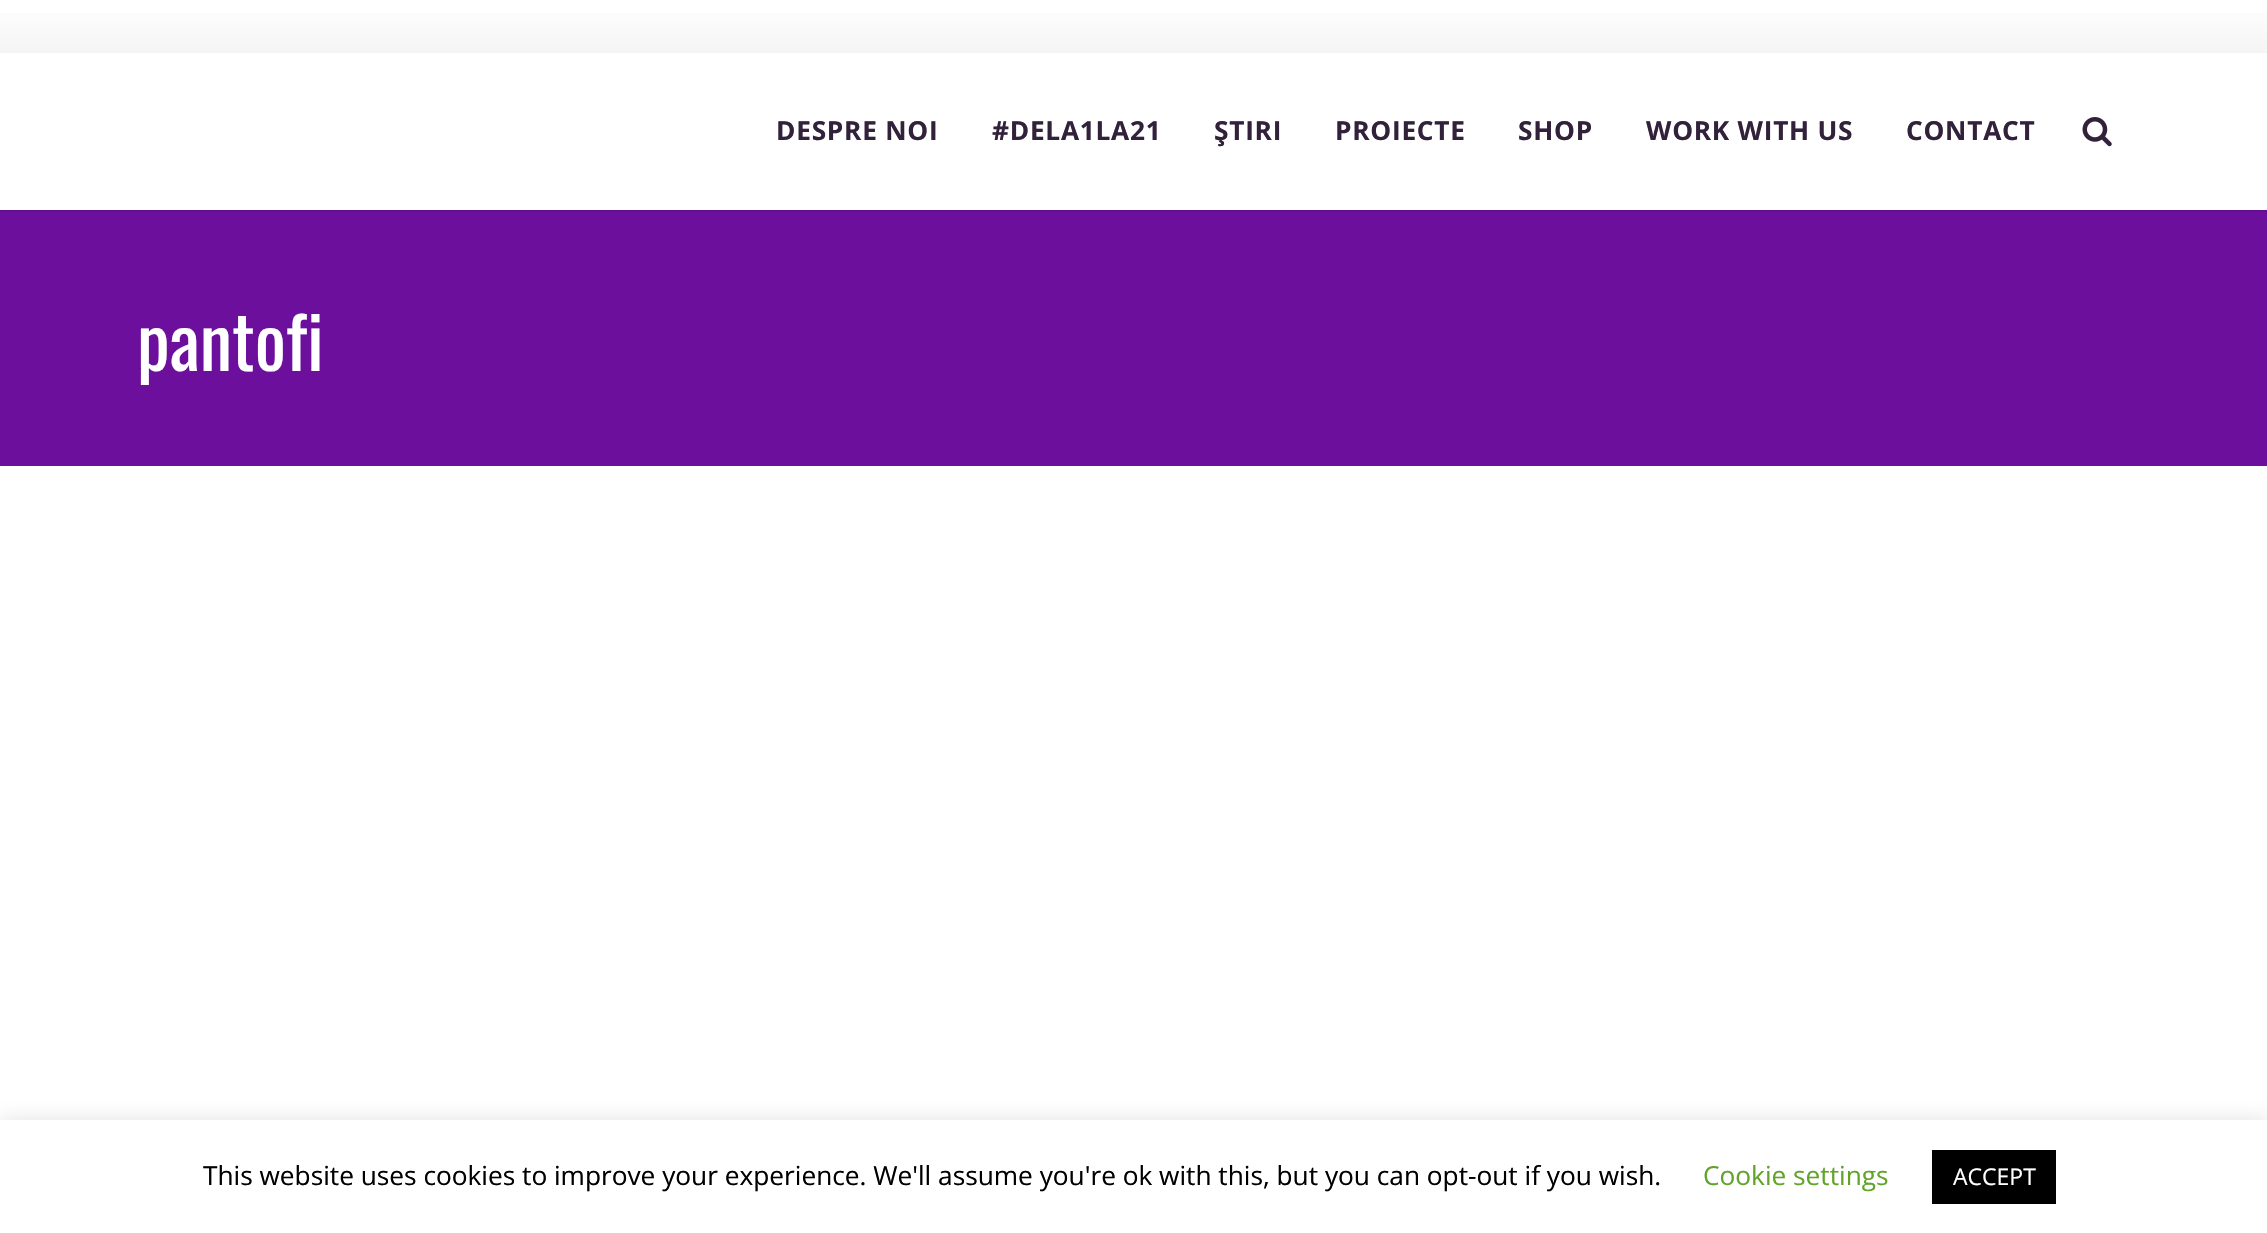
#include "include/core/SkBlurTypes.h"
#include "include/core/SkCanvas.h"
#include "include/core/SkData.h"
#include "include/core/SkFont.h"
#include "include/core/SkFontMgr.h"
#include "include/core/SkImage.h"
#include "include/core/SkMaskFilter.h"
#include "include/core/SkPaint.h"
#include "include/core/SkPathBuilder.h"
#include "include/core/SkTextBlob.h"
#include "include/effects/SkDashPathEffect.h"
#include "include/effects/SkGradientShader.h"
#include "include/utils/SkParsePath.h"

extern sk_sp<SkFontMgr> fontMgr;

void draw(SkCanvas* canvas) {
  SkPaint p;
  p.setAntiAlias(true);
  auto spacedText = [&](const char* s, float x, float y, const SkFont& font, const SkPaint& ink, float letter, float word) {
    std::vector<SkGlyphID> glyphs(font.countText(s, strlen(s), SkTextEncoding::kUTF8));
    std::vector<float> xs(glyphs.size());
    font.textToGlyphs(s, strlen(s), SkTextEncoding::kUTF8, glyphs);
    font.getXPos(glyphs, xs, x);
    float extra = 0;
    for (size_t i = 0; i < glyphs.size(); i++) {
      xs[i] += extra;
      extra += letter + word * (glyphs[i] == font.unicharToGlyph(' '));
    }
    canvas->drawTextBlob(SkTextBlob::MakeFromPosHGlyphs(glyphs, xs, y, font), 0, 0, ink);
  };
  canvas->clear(SK_ColorWHITE);
  {
    const SkColor colors[] = {SkColorSetRGB(245, 245, 245), SK_ColorWHITE};
    const float stops[] = {0, 1};
    const SkPoint ends[] = {{1134, 53}, {1134, 0}};
    p.setShader(SkGradientShader::MakeLinear(ends, colors, stops, 2, SkTileMode::kClamp));
    p.setAlpha(255);
  }
  canvas->drawRect(SkRect::MakeLTRB(0, 13, 2267, 53), p);
  p.setShader(nullptr);
  p.setColor(SkColorSetRGB(98, 14, 144));
  canvas->drawRect(SkRect::MakeLTRB(0, 210, 2267, 212), p);
  canvas->drawImageRect(SkImages::DeferredFromEncodedData(SkData::MakeFromFileName("images/1.png")), SkRect::MakeLTRB(2082, 117, 2112, 147), SkSamplingOptions());
  p.setColor(SkColorSetRGB(107, 15, 156));
  canvas->drawRect(SkRect::MakeLTRB(0, 212, 2267, 466), p);
  p.setColor(SkColorSetARGB(77, 172, 171, 171));
  p.setMaskFilter(SkMaskFilter::MakeBlur(kNormal_SkBlurStyle, 9));
  canvas->drawRect(SkRect::MakeLTRB(0, 1118, 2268, 1232), p);
  p.setMaskFilter(nullptr);
  p.setColor(SK_ColorWHITE);
  canvas->drawRect(SkRect::MakeLTRB(0, 1120, 2267, 1233), p);
  p.setColor(SK_ColorBLACK);
  canvas->drawRect(SkRect::MakeLTRB(1932, 1150, 2056, 1204), p);
  SkFont font1(fontMgr->matchFamilyStyle("Open Sans", SkFontStyle::Bold()), 26.25f);
  font1.setSubpixel(true);
  p.setColor(SkColorSetRGB(49, 33, 58));
  spacedText("DESPRE NOI", 776, 140, font1, p, 0.75f, 0);
  spacedText("#DELA1LA21", 992, 140, font1, p, 0.75f, 0);
  spacedText("ŞTIRI", 1214, 140, font1, p, 0.75f, 0);
  spacedText("PROIECTE", 1335, 140, font1, p, 0.75f, 0);
  spacedText("SHOP", 1518, 140, font1, p, 0.75f, 0);
  spacedText("WORK WITH US", 1646, 140, font1, p, 0.75f, 0);
  spacedText("CONTACT", 1906, 140, font1, p, 0.75f, 0);
  SkFont font2(fontMgr->matchFamilyStyle("Oswald", SkFontStyle::Normal()), 73.5f);
  font2.setSubpixel(true);
  p.setColor(SK_ColorWHITE);
  canvas->drawString("pantofi", 137, 371, font2, p);
  SkFont font3(fontMgr->matchFamilyStyle("Open Sans", SkFontStyle::Normal()), 26.25f);
  font3.setSubpixel(true);
  p.setColor(SK_ColorBLACK);
  canvas->drawString("This website uses cookies to improve your experience. We'll assume you're ok with this, but you can opt-out if you wish.", 203, 1185, font3, p);
  p.setColor(SkColorSetRGB(98, 163, 41));
  canvas->drawString("Cookie settings", 1703, 1185, font3, p);
  SkFont font4(fontMgr->matchFamilyStyle("Open Sans", SkFontStyle::Normal()), 23);
  font4.setSubpixel(true);
  p.setColor(SK_ColorWHITE);
  canvas->drawString("ACCEPT", 1953, 1185, font4, p);
}
